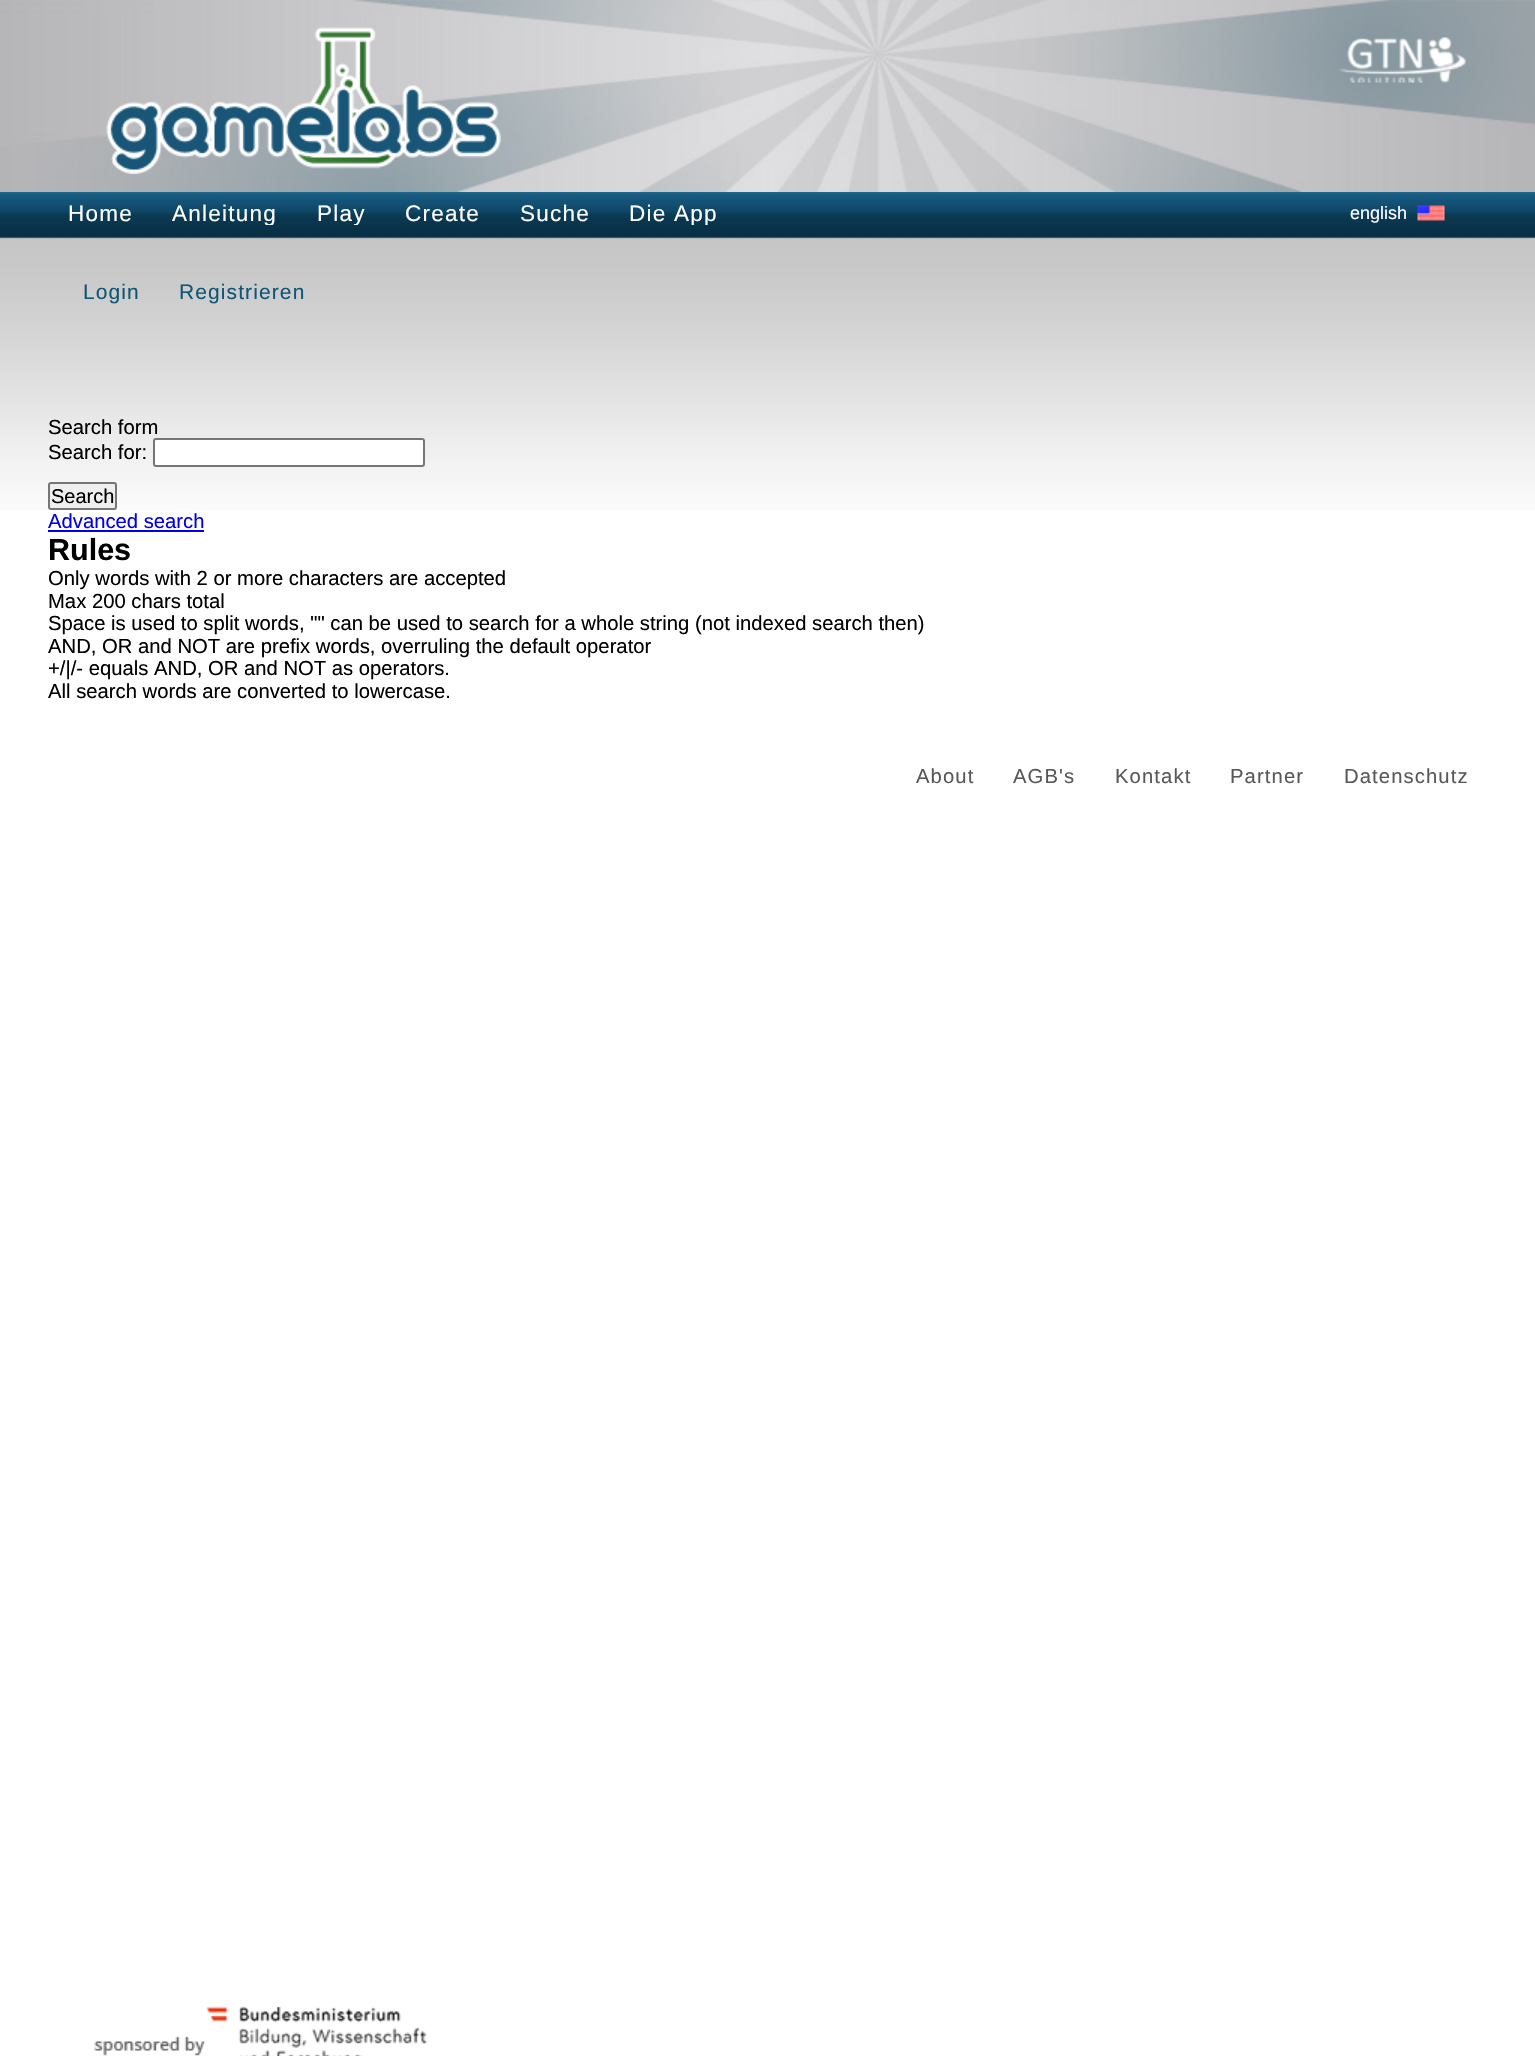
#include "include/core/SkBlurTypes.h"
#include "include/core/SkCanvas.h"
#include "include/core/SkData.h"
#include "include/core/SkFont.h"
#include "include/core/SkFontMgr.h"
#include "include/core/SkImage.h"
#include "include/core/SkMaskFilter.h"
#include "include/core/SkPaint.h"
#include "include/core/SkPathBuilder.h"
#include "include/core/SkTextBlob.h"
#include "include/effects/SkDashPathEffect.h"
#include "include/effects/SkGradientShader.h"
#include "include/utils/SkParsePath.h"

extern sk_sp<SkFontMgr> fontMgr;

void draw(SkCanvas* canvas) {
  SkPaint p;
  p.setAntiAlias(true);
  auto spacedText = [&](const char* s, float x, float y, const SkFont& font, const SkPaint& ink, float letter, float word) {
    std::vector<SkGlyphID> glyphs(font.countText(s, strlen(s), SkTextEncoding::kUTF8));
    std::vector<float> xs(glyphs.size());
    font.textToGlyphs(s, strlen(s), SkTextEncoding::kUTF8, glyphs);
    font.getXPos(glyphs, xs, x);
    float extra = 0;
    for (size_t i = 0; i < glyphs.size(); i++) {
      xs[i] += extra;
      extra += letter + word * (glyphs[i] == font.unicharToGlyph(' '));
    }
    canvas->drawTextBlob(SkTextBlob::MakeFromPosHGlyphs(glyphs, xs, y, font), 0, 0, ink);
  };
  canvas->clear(SK_ColorWHITE);
  canvas->drawImageRect(SkImages::DeferredFromEncodedData(SkData::MakeFromFileName("images/1.png")), SkRect::MakeLTRB(0, 0, 1535, 192), SkSamplingOptions());
  canvas->drawImageRect(SkImages::DeferredFromEncodedData(SkData::MakeFromFileName("images/2.png")), SkRect::MakeLTRB(106, 27, 501, 174), SkSamplingOptions());
  canvas->drawImageRect(SkImages::DeferredFromEncodedData(SkData::MakeFromFileName("images/3.png")), SkRect::MakeLTRB(1338, 37, 1466, 83), SkSamplingOptions());
  canvas->drawImageRect(SkImages::DeferredFromEncodedData(SkData::MakeFromFileName("images/4.png")), SkRect::MakeLTRB(0, 192, 1535, 239), SkSamplingOptions());
  canvas->drawImageRect(SkImages::DeferredFromEncodedData(SkData::MakeFromFileName("images/5.png")), SkRect::MakeLTRB(0, 238, 1535, 510), SkSamplingOptions());
  p.setColor(SK_ColorWHITE);
  canvas->drawRoundRect(SkRect::MakeLTRB(154, 439, 424, 466), 2, 2, p);
  p.setStyle(SkPaint::kStroke_Style);
  p.setStrokeWidth(2);
  p.setColor(SkColorSetRGB(118, 118, 118));
  canvas->drawRoundRect(SkRect::MakeLTRB(154, 439, 424, 466), 2, 2, p);
  p.setStyle(SkPaint::kFill_Style);
  p.setColor(SkColorSetRGB(239, 239, 239));
  canvas->drawRoundRect(SkRect::MakeLTRB(49, 483, 116, 509), 2, 2, p);
  p.setStyle(SkPaint::kStroke_Style);
  p.setColor(SkColorSetRGB(118, 118, 118));
  canvas->drawRoundRect(SkRect::MakeLTRB(49, 483, 116, 509), 2, 2, p);
  p.setStyle(SkPaint::kFill_Style);
  p.setColor(SkColorSetRGB(0, 0, 238));
  canvas->drawRect(SkRect::MakeLTRB(48, 530, 204, 532), p);
  canvas->drawImageRect(SkImages::DeferredFromEncodedData(SkData::MakeFromFileName("images/6.png")), SkRect::MakeLTRB(94, 2006, 427, 2056), SkSamplingOptions());
  canvas->drawImageRect(SkImages::DeferredFromEncodedData(SkData::MakeFromFileName("images/7.png")), SkRect::MakeLTRB(1417, 205, 1445, 221), SkSamplingOptions());
  SkFont font1(fontMgr->matchFamilyStyle("Liberation Sans", SkFontStyle::Normal()), 22.5f);
  font1.setSubpixel(true);
  p.setColor(SK_ColorWHITE);
  spacedText("Home", 68, 221, font1, p, 1.25f, 0);
  canvas->save();
  canvas->clipRect(SkRect::MakeLTRB(48, 192, 1488, 225));
  spacedText("Anleitung", 172, 221, font1, p, 1.25f, 0);
  spacedText("Play", 317, 221, font1, p, 1.25f, 0);
  canvas->restore();
  spacedText("Create", 405, 221, font1, p, 1.25f, 0);
  spacedText("Suche", 520, 221, font1, p, 1.25f, 0);
  canvas->save();
  canvas->clipRect(SkRect::MakeLTRB(48, 192, 1488, 225));
  spacedText("Die App", 629, 221, font1, p, 1.25f, 0);
  canvas->restore();
  SkFont font2(fontMgr->matchFamilyStyle("Liberation Sans", SkFontStyle::Normal()), 21);
  font2.setSubpixel(true);
  p.setColor(SkColorSetRGB(15, 85, 117));
  spacedText("Login", 83, 299, font2, p, 1.1f, 0);
  spacedText("Registrieren", 179, 299, font2, p, 1.1f, 0);
  SkFont font3(fontMgr->matchFamilyStyle("Liberation Sans", SkFontStyle::Normal()), 20.25f);
  font3.setSubpixel(true);
  p.setColor(SK_ColorBLACK);
  canvas->drawString("Search form", 48, 434, font3, p);
  canvas->drawString("Search for:", 48, 459, font3, p);
  SkFont font4(fontMgr->matchFamilyStyle("Liberation Sans", SkFontStyle::Normal()), 20);
  font4.setSubpixel(true);
  canvas->drawString("Search", 51, 503, font4, p);
  p.setColor(SkColorSetRGB(0, 0, 238));
  canvas->drawString("Advanced search", 48, 528, font3, p);
  SkFont font5(fontMgr->matchFamilyStyle("Liberation Sans", SkFontStyle::Bold()), 30.5f);
  font5.setSubpixel(true);
  p.setColor(SK_ColorBLACK);
  canvas->drawString("Rules", 48, 560, font5, p);
  canvas->drawString("Only words with 2 or more characters are accepted", 48, 585, font3, p);
  canvas->drawString("Max 200 chars total", 48, 608, font3, p);
  canvas->drawString("Space is used to split words, \"\" can be used to search for a whole string (not indexed search then)", 48, 630, font3, p);
  canvas->drawString("AND, OR and NOT are prefix words, overruling the default operator", 48, 653, font3, p);
  canvas->drawString("+/|/- equals AND, OR and NOT as operators.", 48, 675, font3, p);
  canvas->drawString("All search words are converted to lowercase.", 48, 698, font3, p);
  p.setColor(SkColorSetRGB(88, 88, 90));
  spacedText("About", 916, 783, font3, p, 1.1f, 0);
  spacedText("AGB's", 1013, 783, font3, p, 1.1f, 0);
  spacedText("Kontakt", 1115, 783, font3, p, 1.1f, 0);
  spacedText("Partner", 1230, 783, font3, p, 1.1f, 0);
  spacedText("Datenschutz", 1344, 783, font3, p, 1.1f, 0);
  SkFont font6(fontMgr->matchFamilyStyle("Liberation Sans", SkFontStyle::Normal()), 18);
  font6.setSubpixel(true);
  p.setColor(SK_ColorWHITE);
  canvas->drawString("english", 1350, 219, font6, p);
}
